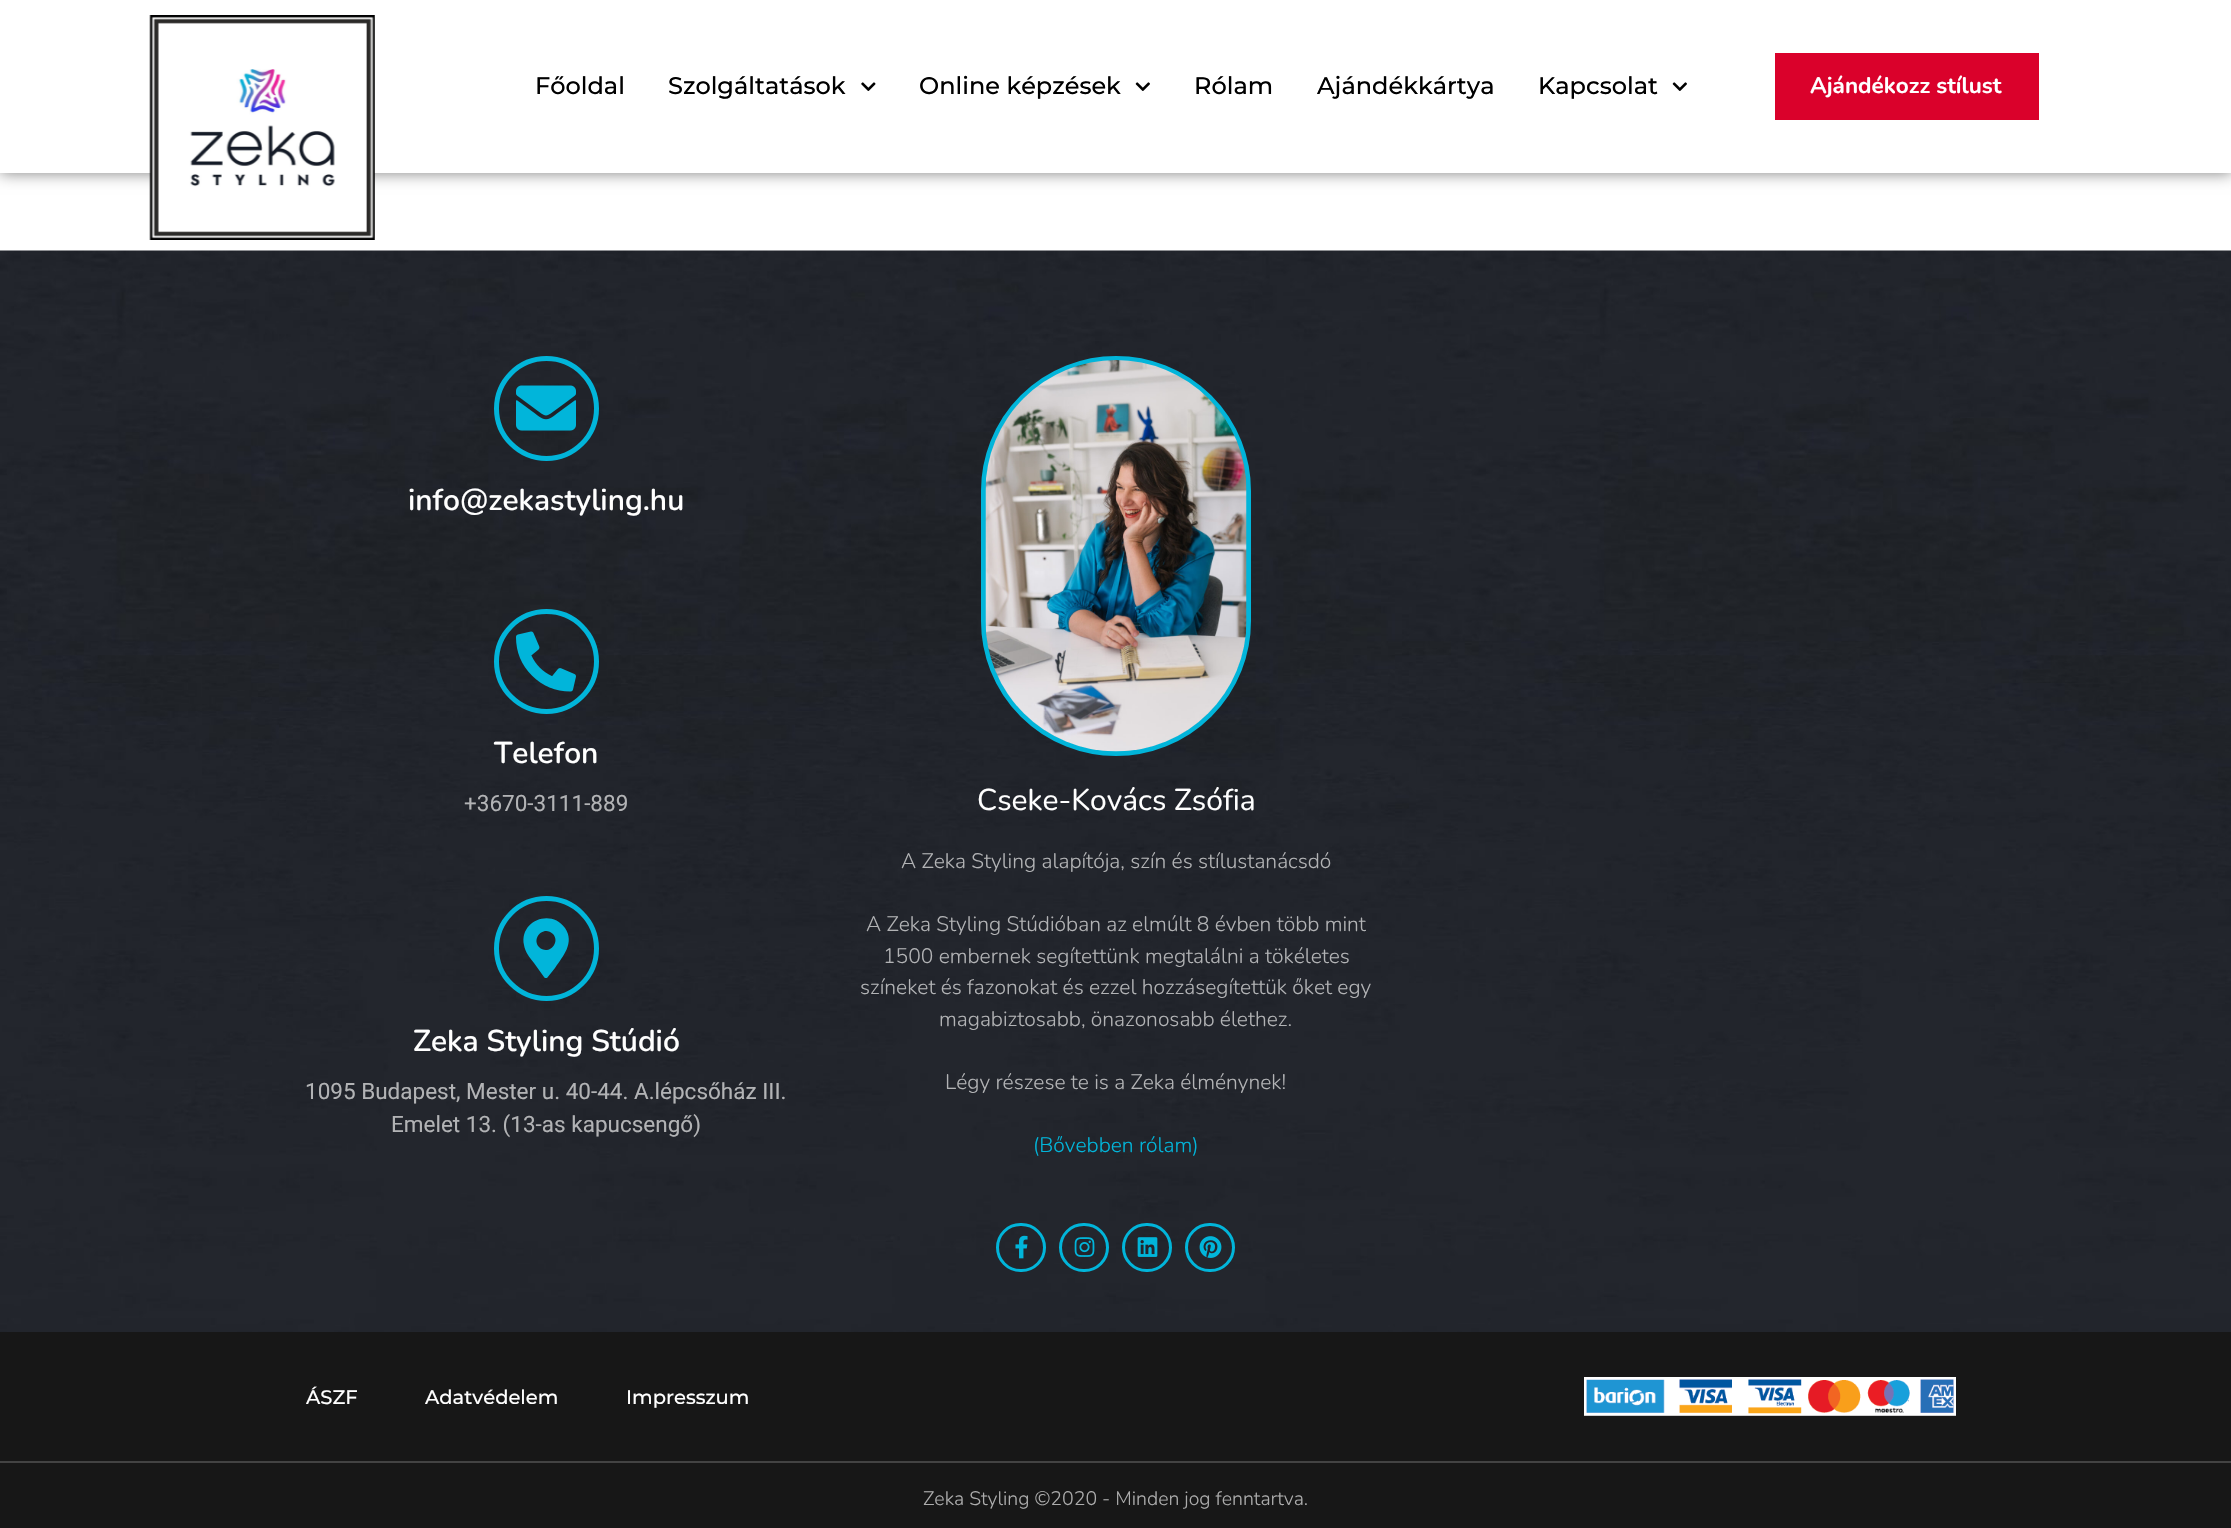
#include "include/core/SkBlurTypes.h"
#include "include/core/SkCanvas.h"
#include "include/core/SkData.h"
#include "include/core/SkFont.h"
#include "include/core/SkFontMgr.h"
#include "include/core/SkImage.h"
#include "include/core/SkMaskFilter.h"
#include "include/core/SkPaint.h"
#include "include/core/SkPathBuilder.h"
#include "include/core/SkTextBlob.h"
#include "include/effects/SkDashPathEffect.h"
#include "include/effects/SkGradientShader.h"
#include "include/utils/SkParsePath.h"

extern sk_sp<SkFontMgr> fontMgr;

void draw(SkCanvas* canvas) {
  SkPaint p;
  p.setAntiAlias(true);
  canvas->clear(SK_ColorWHITE);
  p.setColor(SkColorSetARGB(128, 0, 0, 0));
  p.setMaskFilter(SkMaskFilter::MakeBlur(kNormal_SkBlurStyle, 7.5f));
  canvas->drawRect(SkRect::MakeLTRB(0, 0, 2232, 173), p);
  p.setMaskFilter(nullptr);
  p.setColor(SK_ColorWHITE);
  canvas->drawRect(SkRect::MakeLTRB(0, 0, 2231, 173), p);
  canvas->drawImageRect(SkImages::DeferredFromEncodedData(SkData::MakeFromFileName("images/1.png")), SkRect::MakeLTRB(149, 15, 375, 240), SkSamplingOptions());
  canvas->drawImageRect(SkImages::DeferredFromEncodedData(SkData::MakeFromFileName("images/2.png")), SkRect::MakeLTRB(861, 82, 876, 91), SkSamplingOptions());
  canvas->drawImageRect(SkImages::DeferredFromEncodedData(SkData::MakeFromFileName("images/3.png")), SkRect::MakeLTRB(1135, 82, 1150, 91), SkSamplingOptions());
  canvas->drawImageRect(SkImages::DeferredFromEncodedData(SkData::MakeFromFileName("images/3.png")), SkRect::MakeLTRB(1672, 82, 1687, 91), SkSamplingOptions());
  p.setColor(SkColorSetRGB(218, 1, 43));
  canvas->drawRect(SkRect::MakeLTRB(1775, 53, 2039, 120), p);
  canvas->drawImageRect(SkImages::DeferredFromEncodedData(SkData::MakeFromFileName("images/4.png")), SkRect::MakeLTRB(0, 250, 2231, 1332), SkSamplingOptions());
  p.setStyle(SkPaint::kStroke_Style);
  p.setStrokeWidth(5);
  p.setColor(SkColorSetRGB(1, 181, 218));
  canvas->drawCircle(546.5f, 408.5f, 50, p);
  canvas->drawImageRect(SkImages::DeferredFromEncodedData(SkData::MakeFromFileName("images/5.png")), SkRect::MakeLTRB(516, 385, 576, 431), SkSamplingOptions());
  canvas->drawCircle(546.5f, 661.5f, 50, p);
  canvas->drawImageRect(SkImages::DeferredFromEncodedData(SkData::MakeFromFileName("images/6.png")), SkRect::MakeLTRB(516, 631, 576, 692), SkSamplingOptions());
  canvas->drawCircle(546.5f, 948.5f, 50, p);
  p.setStyle(SkPaint::kFill_Style);
  canvas->drawPath(SkPathBuilder().moveTo(544, 977).lineTo(534, 963).cubicTo(530, 958, 525, 952, 524, 945).cubicTo(519, 921, 551, 908, 565, 928).cubicTo(575, 943, 563, 956, 555, 968).lineTo(547, 978).cubicTo(546, 978, 544, 978, 544, 977).close().moveTo(539, 947).cubicTo(548, 956, 561, 943, 553, 934).cubicTo(544, 925, 531, 938, 539, 947).close().detach(), p);
  p.setStyle(SkPaint::kStroke_Style);
  canvas->drawRoundRect(SkRect::MakeLTRB(983.5f, 358.5f, 1248.5f, 753.5f), 132.5f, 132.5f, p);
  canvas->drawImageRect(SkImages::DeferredFromEncodedData(SkData::MakeFromFileName("images/7.png")), SkRect::MakeLTRB(985, 360, 1247, 752), SkSamplingOptions());
  p.setStrokeWidth(3);
  canvas->drawRoundRect(SkRect::MakeLTRB(997.5f, 1224.5f, 1044.5f, 1270.5f), 23, 23, p);
  canvas->drawImageRect(SkImages::DeferredFromEncodedData(SkData::MakeFromFileName("images/8.png")), SkRect::MakeLTRB(1015, 1235, 1028, 1259), SkSamplingOptions());
  canvas->drawRoundRect(SkRect::MakeLTRB(1060.5f, 1224.5f, 1107.5f, 1270.5f), 23, 23, p);
  canvas->drawImageRect(SkImages::DeferredFromEncodedData(SkData::MakeFromFileName("images/9.png")), SkRect::MakeLTRB(1074, 1237, 1095, 1257), SkSamplingOptions());
  canvas->drawRoundRect(SkRect::MakeLTRB(1123.5f, 1224.5f, 1170.5f, 1270.5f), 23, 23, p);
  canvas->drawImageRect(SkImages::DeferredFromEncodedData(SkData::MakeFromFileName("images/10.png")), SkRect::MakeLTRB(1137, 1237, 1158, 1257), SkSamplingOptions());
  canvas->drawRoundRect(SkRect::MakeLTRB(1186.5f, 1224.5f, 1233.5f, 1270.5f), 23, 23, p);
  canvas->drawImageRect(SkImages::DeferredFromEncodedData(SkData::MakeFromFileName("images/11.png")), SkRect::MakeLTRB(1199, 1236, 1222, 1258), SkSamplingOptions());
  p.setStyle(SkPaint::kFill_Style);
  p.setColor(SkColorSetRGB(23, 23, 23));
  canvas->drawRect(SkRect::MakeLTRB(0, 1332, 2231, 1461), p);
  canvas->drawImageRect(SkImages::DeferredFromEncodedData(SkData::MakeFromFileName("images/12.png")), SkRect::MakeLTRB(1584, 1377, 1956, 1416), SkSamplingOptions());
  canvas->drawRect(SkRect::MakeLTRB(0, 1463, 2231, 1528), p);
  p.setColor(SkColorSetRGB(67, 67, 67));
  canvas->drawRect(SkRect::MakeLTRB(0, 1461, 2231, 1463), p);
  SkFont font1(fontMgr->matchFamilyStyle("Montserrat", SkFontStyle(500, SkFontStyle::kNormal_Width, SkFontStyle::kUpright_Slant)), 24);
  font1.setSubpixel(true);
  p.setColor(SK_ColorBLACK);
  canvas->drawString("Főoldal", 535, 94, font1, p);
  canvas->drawString("Szolgáltatások", 668, 94, font1, p);
  canvas->drawString("Online képzések", 919, 94, font1, p);
  canvas->drawString("Rólam", 1194, 94, font1, p);
  canvas->drawString("Ajándékkártya", 1317, 94, font1, p);
  canvas->drawString("Kapcsolat", 1538, 94, font1, p);
  SkFont font2(fontMgr->matchFamilyStyle("Nunito", SkFontStyle::Bold()), 22.5f);
  font2.setSubpixel(true);
  p.setColor(SK_ColorWHITE);
  canvas->drawString("Ajándékozz stílust", 1810, 93, font2, p);
  SkFont font3(fontMgr->matchFamilyStyle("Nunito", SkFontStyle(600, SkFontStyle::kNormal_Width, SkFontStyle::kUpright_Slant)), 30);
  font3.setSubpixel(true);
  canvas->drawString("info@zekastyling.hu", 408, 510, font3, p);
  canvas->drawString("Telefon", 494, 763, font3, p);
  SkFont font4(fontMgr->matchFamilyStyle("Roboto", SkFontStyle::Normal()), 22.5f);
  font4.setSubpixel(true);
  p.setColor(SkColorSetRGB(178, 179, 181));
  canvas->drawString("+3670-3111-889", 464, 811, font4, p);
  p.setColor(SK_ColorWHITE);
  canvas->drawString("Zeka Styling Stúdió", 413, 1051, font3, p);
  p.setColor(SkColorSetRGB(178, 179, 181));
  canvas->drawString("1095 Budapest, Mester u. 40-44. A.lépcsőház III.", 305, 1099, font4, p);
  canvas->drawString("Emelet 13. (13-as kapucsengő)", 391, 1132, font4, p);
  SkFont font5(fontMgr->matchFamilyStyle("Nunito", SkFontStyle::Normal()), 30);
  font5.setSubpixel(true);
  p.setColor(SK_ColorWHITE);
  canvas->drawString("Cseke-Kovács Zsófia", 977, 810, font5, p);
  SkFont font6(fontMgr->matchFamilyStyle("Nunito", SkFontStyle(300, SkFontStyle::kNormal_Width, SkFontStyle::kUpright_Slant)), 21);
  font6.setSubpixel(true);
  p.setColor(SkColorSetRGB(178, 179, 181));
  canvas->drawString("A Zeka Styling alapítója, szín és stílustanácsdó", 901, 868, font6, p);
  canvas->drawString("A Zeka Styling Stúdióban az elmúlt 8 évben több mint", 866, 931, font6, p);
  canvas->drawString("1500 embernek segítettünk megtalálni a tökéletes", 883, 963, font6, p);
  canvas->drawString("színeket és fazonokat és ezzel hozzásegítettük őket egy", 860, 994, font6, p);
  canvas->drawString("magabiztosabb, önazonosabb élethez.", 939, 1026, font6, p);
  canvas->drawString("Légy részese te is a Zeka élménynek!", 945, 1089, font6, p);
  p.setColor(SkColorSetRGB(1, 181, 218));
  canvas->drawString("(Bővebben rólam)", 1033, 1152, font6, p);
  SkFont font7(fontMgr->matchFamilyStyle("Montserrat", SkFontStyle(500, SkFontStyle::kNormal_Width, SkFontStyle::kUpright_Slant)), 19.5f);
  font7.setSubpixel(true);
  p.setColor(SK_ColorWHITE);
  canvas->drawString("ÁSZF", 306, 1404, font7, p);
  canvas->drawString("Adatvédelem", 425, 1404, font7, p);
  canvas->drawString("Impresszum", 626, 1404, font7, p);
  SkFont font8(fontMgr->matchFamilyStyle("Nunito", SkFontStyle(300, SkFontStyle::kNormal_Width, SkFontStyle::kUpright_Slant)), 19.5f);
  font8.setSubpixel(true);
  p.setColor(SkColorSetRGB(173, 173, 173));
  canvas->drawString("Zeka Styling ©2020 - Minden jog fenntartva.", 923, 1505, font8, p);
}
